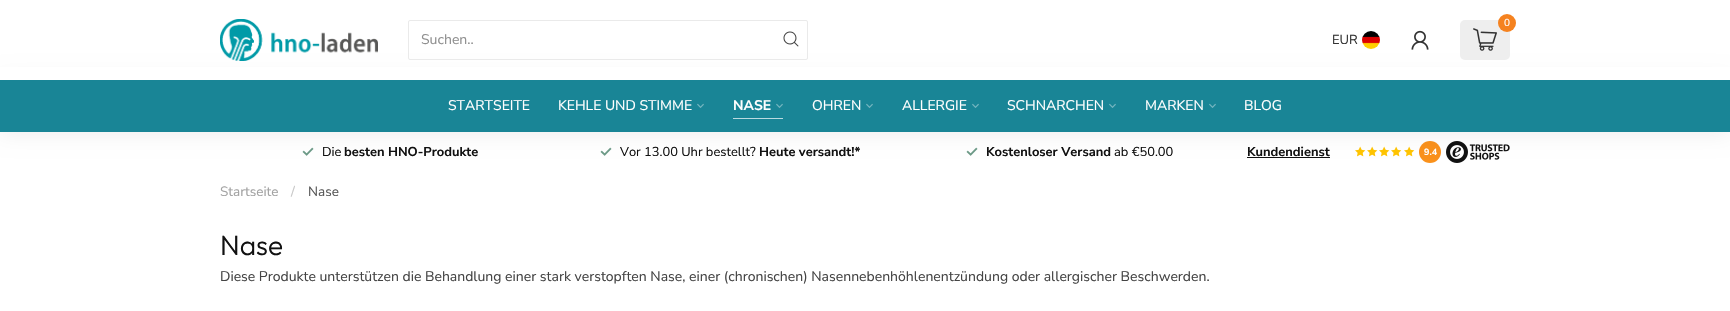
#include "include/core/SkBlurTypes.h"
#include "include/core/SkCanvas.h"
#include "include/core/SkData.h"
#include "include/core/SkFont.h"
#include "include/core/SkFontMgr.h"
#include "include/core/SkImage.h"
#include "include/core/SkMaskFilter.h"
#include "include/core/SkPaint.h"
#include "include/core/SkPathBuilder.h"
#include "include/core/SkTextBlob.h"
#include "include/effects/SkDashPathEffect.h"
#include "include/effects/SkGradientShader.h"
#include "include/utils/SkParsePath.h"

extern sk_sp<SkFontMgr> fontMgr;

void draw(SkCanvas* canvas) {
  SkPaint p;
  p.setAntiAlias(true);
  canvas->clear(SK_ColorWHITE);
  canvas->drawImageRect(SkImages::DeferredFromEncodedData(SkData::MakeFromFileName("images/7.png")), SkRect::MakeLTRB(302, 147, 314, 156), SkSamplingOptions());
  canvas->drawImageRect(SkImages::DeferredFromEncodedData(SkData::MakeFromFileName("images/7.png")), SkRect::MakeLTRB(600, 147, 612, 156), SkSamplingOptions());
  canvas->drawImageRect(SkImages::DeferredFromEncodedData(SkData::MakeFromFileName("images/7.png")), SkRect::MakeLTRB(966, 147, 978, 156), SkSamplingOptions());
  p.setColor(SkColorSetRGB(17, 17, 17));
  canvas->drawRect(SkRect::MakeLTRB(1247, 157, 1330, 158), p);
  canvas->drawImageRect(SkImages::DeferredFromEncodedData(SkData::MakeFromFileName("images/8.png")), SkRect::MakeLTRB(1355, 146, 1366, 157), SkSamplingOptions());
  canvas->drawImageRect(SkImages::DeferredFromEncodedData(SkData::MakeFromFileName("images/8.png")), SkRect::MakeLTRB(1367, 146, 1378, 157), SkSamplingOptions());
  canvas->drawImageRect(SkImages::DeferredFromEncodedData(SkData::MakeFromFileName("images/8.png")), SkRect::MakeLTRB(1379, 146, 1390, 157), SkSamplingOptions());
  canvas->drawImageRect(SkImages::DeferredFromEncodedData(SkData::MakeFromFileName("images/8.png")), SkRect::MakeLTRB(1391, 146, 1402, 157), SkSamplingOptions());
  canvas->drawImageRect(SkImages::DeferredFromEncodedData(SkData::MakeFromFileName("images/8.png")), SkRect::MakeLTRB(1404, 146, 1415, 157), SkSamplingOptions());
  p.setColor(SkColorSetRGB(250, 145, 27));
  canvas->drawCircle(1430, 152, 11, p);
  canvas->drawImageRect(SkImages::DeferredFromEncodedData(SkData::MakeFromFileName("images/9.png")), SkRect::MakeLTRB(1446, 141, 1510, 163), SkSamplingOptions());
  p.setColor(SkColorSetARGB(20, 0, 0, 0));
  p.setMaskFilter(SkMaskFilter::MakeBlur(kNormal_SkBlurStyle, 11));
  canvas->drawRect(SkRect::MakeLTRB(0, 80, 1730, 132), p);
  p.setMaskFilter(nullptr);
  p.setColor(SK_ColorWHITE);
  canvas->drawRect(SkRect::MakeLTRB(0, 67, 1730, 80), p);
  canvas->drawImageRect(SkImages::DeferredFromEncodedData(SkData::MakeFromFileName("images/1.png")), SkRect::MakeLTRB(220, 19, 378, 61), SkSamplingOptions());
  p.setStyle(SkPaint::kStroke_Style);
  p.setStrokeWidth(1);
  p.setColor(SkColorSetRGB(234, 234, 234));
  canvas->drawRoundRect(SkRect::MakeLTRB(408.5f, 20.5f, 807.5f, 59.5f), 1.5f, 1.5f, p);
  canvas->drawImageRect(SkImages::DeferredFromEncodedData(SkData::MakeFromFileName("images/2.png")), SkRect::MakeLTRB(783, 31, 799, 47), SkSamplingOptions());
  p.setStyle(SkPaint::kFill_Style);
  p.setColor(SkColorSetRGB(238, 238, 238));
  canvas->drawRoundRect(SkRect::MakeLTRB(1460, 20, 1510, 60), 5, 5, p);
  p.setColor(SkColorSetRGB(245, 130, 31));
  canvas->drawCircle(1507, 23, 9, p);
  canvas->drawImageRect(SkImages::DeferredFromEncodedData(SkData::MakeFromFileName("images/3.png")), SkRect::MakeLTRB(1473, 28, 1497, 51), SkSamplingOptions());
  canvas->drawImageRect(SkImages::DeferredFromEncodedData(SkData::MakeFromFileName("images/4.png")), SkRect::MakeLTRB(1362, 31, 1380, 49), SkSamplingOptions());
  canvas->drawImageRect(SkImages::DeferredFromEncodedData(SkData::MakeFromFileName("images/5.png")), SkRect::MakeLTRB(1411, 30, 1429, 50), SkSamplingOptions());
  p.setColor(SkColorSetRGB(25, 133, 150));
  canvas->drawRect(SkRect::MakeLTRB(0, 80, 1730, 132), p);
  canvas->drawImageRect(SkImages::DeferredFromEncodedData(SkData::MakeFromFileName("images/6.png")), SkRect::MakeLTRB(697, 103, 704, 108), SkSamplingOptions());
  canvas->drawImageRect(SkImages::DeferredFromEncodedData(SkData::MakeFromFileName("images/6.png")), SkRect::MakeLTRB(776, 103, 783, 108), SkSamplingOptions());
  p.setColor(SkColorSetRGB(186, 218, 224));
  canvas->drawRect(SkRect::MakeLTRB(733, 118, 783, 119), p);
  canvas->drawImageRect(SkImages::DeferredFromEncodedData(SkData::MakeFromFileName("images/6.png")), SkRect::MakeLTRB(866, 103, 873, 108), SkSamplingOptions());
  canvas->drawImageRect(SkImages::DeferredFromEncodedData(SkData::MakeFromFileName("images/6.png")), SkRect::MakeLTRB(972, 103, 979, 108), SkSamplingOptions());
  canvas->drawImageRect(SkImages::DeferredFromEncodedData(SkData::MakeFromFileName("images/6.png")), SkRect::MakeLTRB(1109, 103, 1116, 108), SkSamplingOptions());
  canvas->drawImageRect(SkImages::DeferredFromEncodedData(SkData::MakeFromFileName("images/6.png")), SkRect::MakeLTRB(1209, 103, 1216, 108), SkSamplingOptions());
  SkFont font1(fontMgr->matchFamilyStyle("Nunito Sans", SkFontStyle::Normal()), 14);
  font1.setSubpixel(true);
  p.setColor(SkColorSetRGB(143, 143, 143));
  canvas->drawString("Suchen..", 421, 44, font1, p);
  SkFont font2(fontMgr->matchFamilyStyle("Nunito Sans", SkFontStyle::Normal()), 10);
  font2.setSubpixel(true);
  p.setColor(SK_ColorWHITE);
  canvas->drawString("0", 1504, 26, font2, p);
  SkFont font3(fontMgr->matchFamilyStyle("Nunito Sans", SkFontStyle::Normal()), 13);
  font3.setSubpixel(true);
  p.setColor(SkColorSetRGB(51, 51, 51));
  canvas->drawString("EUR", 1332, 44, font3, p);
  p.setColor(SK_ColorWHITE);
  canvas->drawString("STARTSEITE", 448, 110, font1, p);
  canvas->drawString("KEHLE UND STIMME", 558, 110, font1, p);
  SkFont font4(fontMgr->matchFamilyStyle("Nunito Sans", SkFontStyle::Bold()), 14);
  font4.setSubpixel(true);
  canvas->drawString("NASE", 733, 110, font4, p);
  canvas->drawString("OHREN", 812, 110, font1, p);
  canvas->drawString("ALLERGIE", 902, 110, font1, p);
  canvas->drawString("SCHNARCHEN", 1007, 110, font1, p);
  canvas->drawString("MARKEN", 1145, 110, font1, p);
  canvas->drawString("BLOG", 1244, 110, font1, p);
  SkFont font5(fontMgr->matchFamilyStyle("Nunito Sans", SkFontStyle::Normal()), 12.9f);
  font5.setSubpixel(true);
  p.setColor(SkColorSetRGB(17, 17, 17));
  canvas->drawString("Die", 322, 156, font5, p);
  SkFont font6(fontMgr->matchFamilyStyle("Nunito Sans", SkFontStyle::Bold()), 12.9f);
  font6.setSubpixel(true);
  canvas->drawString("besten HNO-Produkte", 344, 156, font6, p);
  canvas->drawString("Vor 13.00 Uhr bestellt?", 620, 156, font5, p);
  canvas->drawString("Heute versandt!*", 759, 156, font6, p);
  canvas->drawString("Kostenloser Versand", 986, 156, font6, p);
  canvas->drawString("ab €50.00", 1114, 156, font5, p);
  canvas->drawString("Kundendienst", 1247, 156, font6, p);
  SkFont font7(fontMgr->matchFamilyStyle("Nunito Sans", SkFontStyle::Bold()), 9);
  font7.setSubpixel(true);
  p.setColor(SK_ColorWHITE);
  canvas->drawString("9.4", 1424, 155, font7, p);
  SkFont font8(fontMgr->matchFamilyStyle("Nunito Sans", SkFontStyle::Normal()), 13.5f);
  font8.setSubpixel(true);
  p.setColor(SkColorSetRGB(162, 162, 162));
  canvas->drawString("Startseite", 220, 196, font8, p);
  p.setColor(SkColorSetRGB(199, 199, 199));
  canvas->drawString("/", 291, 196, font8, p);
  p.setColor(SkColorSetRGB(87, 87, 87));
  canvas->drawString("Nase", 308, 196, font8, p);
  SkFont font9(fontMgr->matchFamilyStyle("Outfit", SkFontStyle(300, SkFontStyle::kNormal_Width, SkFontStyle::kUpright_Slant)), 28);
  font9.setSubpixel(true);
  p.setColor(SkColorSetRGB(17, 17, 17));
  canvas->drawString("Nase", 220, 255, font9, p);
  p.setColor(SkColorSetRGB(68, 68, 68));
  canvas->drawString("Diese Produkte unterstützen die Behandlung einer stark verstopften Nase, einer (chronischen) Nasennebenhöhlenentzündung oder allergischer Beschwerden.", 220, 281, font1, p);
}
